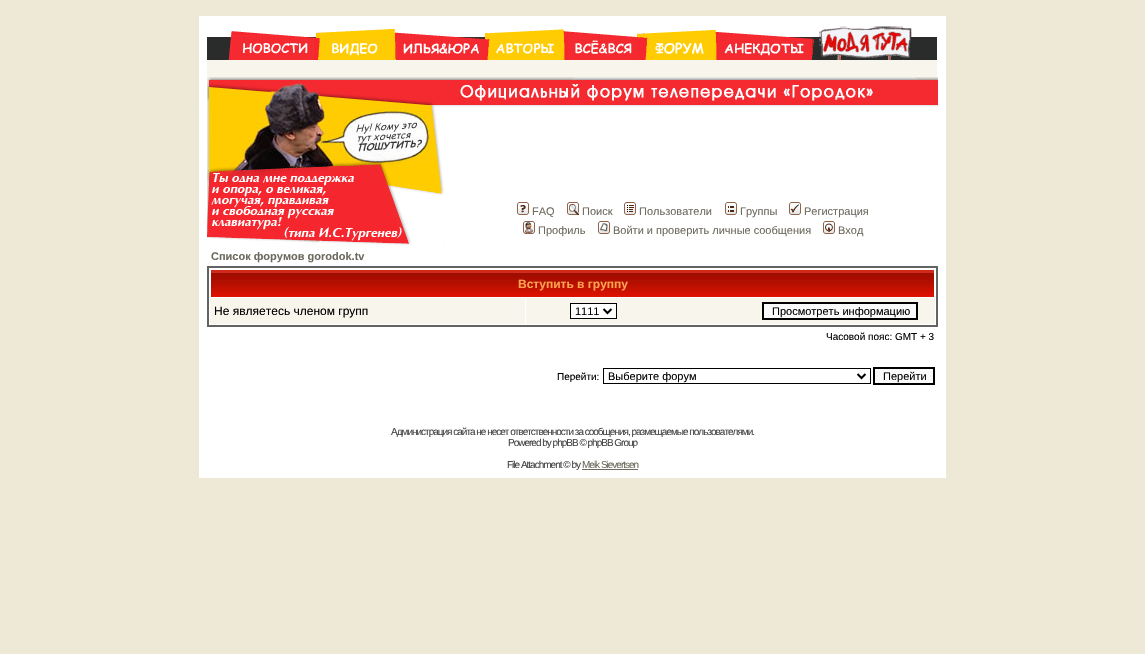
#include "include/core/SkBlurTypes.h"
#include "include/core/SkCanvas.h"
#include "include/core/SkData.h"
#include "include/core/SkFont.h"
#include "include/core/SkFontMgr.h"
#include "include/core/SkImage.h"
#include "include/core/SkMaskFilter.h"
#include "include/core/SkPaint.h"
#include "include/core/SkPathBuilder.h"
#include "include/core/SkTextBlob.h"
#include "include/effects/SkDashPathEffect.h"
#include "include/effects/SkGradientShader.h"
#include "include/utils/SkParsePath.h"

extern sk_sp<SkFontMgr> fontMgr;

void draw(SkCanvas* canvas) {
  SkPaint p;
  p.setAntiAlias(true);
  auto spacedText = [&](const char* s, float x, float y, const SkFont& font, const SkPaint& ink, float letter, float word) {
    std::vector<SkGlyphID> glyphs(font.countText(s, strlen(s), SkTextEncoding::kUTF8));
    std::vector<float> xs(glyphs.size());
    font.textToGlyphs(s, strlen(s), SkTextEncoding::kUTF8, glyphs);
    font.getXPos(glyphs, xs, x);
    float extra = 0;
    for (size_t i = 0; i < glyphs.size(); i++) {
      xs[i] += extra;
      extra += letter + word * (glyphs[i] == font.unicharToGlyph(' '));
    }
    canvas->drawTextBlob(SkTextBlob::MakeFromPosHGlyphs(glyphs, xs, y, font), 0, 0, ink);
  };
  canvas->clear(SkColorSetRGB(237, 233, 214));
  p.setColor(SK_ColorWHITE);
  canvas->drawRect(SkRect::MakeLTRB(199, 16, 946, 478), p);
  canvas->drawImageRect(SkImages::DeferredFromEncodedData(SkData::MakeFromFileName("images/1.png")), SkRect::MakeLTRB(207, 31, 319, 60), SkSamplingOptions());
  canvas->drawImageRect(SkImages::DeferredFromEncodedData(SkData::MakeFromFileName("images/2.png")), SkRect::MakeLTRB(319, 29, 395, 60), SkSamplingOptions());
  canvas->drawImageRect(SkImages::DeferredFromEncodedData(SkData::MakeFromFileName("images/3.png")), SkRect::MakeLTRB(395, 32, 488, 60), SkSamplingOptions());
  canvas->drawImageRect(SkImages::DeferredFromEncodedData(SkData::MakeFromFileName("images/4.png")), SkRect::MakeLTRB(488, 29, 564, 60), SkSamplingOptions());
  canvas->drawImageRect(SkImages::DeferredFromEncodedData(SkData::MakeFromFileName("images/5.png")), SkRect::MakeLTRB(564, 31, 646, 60), SkSamplingOptions());
  canvas->drawImageRect(SkImages::DeferredFromEncodedData(SkData::MakeFromFileName("images/6.png")), SkRect::MakeLTRB(646, 30, 716, 60), SkSamplingOptions());
  canvas->drawImageRect(SkImages::DeferredFromEncodedData(SkData::MakeFromFileName("images/7.png")), SkRect::MakeLTRB(716, 32, 812, 60), SkSamplingOptions());
  canvas->drawImageRect(SkImages::DeferredFromEncodedData(SkData::MakeFromFileName("images/8.png")), SkRect::MakeLTRB(812, 26, 937, 60), SkSamplingOptions());
  p.setColor(SkColorSetRGB(247, 245, 236));
  canvas->drawRect(SkRect::MakeLTRB(207, 60, 937, 77), p);
  canvas->drawImageRect(SkImages::DeferredFromEncodedData(SkData::MakeFromFileName("images/9.png")), SkRect::MakeLTRB(207, 77, 445, 107), SkSamplingOptions());
  canvas->drawImageRect(SkImages::DeferredFromEncodedData(SkData::MakeFromFileName("images/10.png")), SkRect::MakeLTRB(207, 107, 441, 163), SkSamplingOptions());
  canvas->drawImageRect(SkImages::DeferredFromEncodedData(SkData::MakeFromFileName("images/11.png")), SkRect::MakeLTRB(207, 163, 445, 246), SkSamplingOptions());
  canvas->drawImageRect(SkImages::DeferredFromEncodedData(SkData::MakeFromFileName("images/12.png")), SkRect::MakeLTRB(445, 77, 938, 107), SkSamplingOptions());
  canvas->drawImageRect(SkImages::DeferredFromEncodedData(SkData::MakeFromFileName("images/13.png")), SkRect::MakeLTRB(517, 202, 529, 215), SkSamplingOptions());
  canvas->drawImageRect(SkImages::DeferredFromEncodedData(SkData::MakeFromFileName("images/14.png")), SkRect::MakeLTRB(567, 202, 579, 215), SkSamplingOptions());
  canvas->drawImageRect(SkImages::DeferredFromEncodedData(SkData::MakeFromFileName("images/15.png")), SkRect::MakeLTRB(624, 202, 636, 215), SkSamplingOptions());
  canvas->drawImageRect(SkImages::DeferredFromEncodedData(SkData::MakeFromFileName("images/16.png")), SkRect::MakeLTRB(725, 202, 737, 215), SkSamplingOptions());
  canvas->drawImageRect(SkImages::DeferredFromEncodedData(SkData::MakeFromFileName("images/17.png")), SkRect::MakeLTRB(789, 202, 801, 215), SkSamplingOptions());
  canvas->drawImageRect(SkImages::DeferredFromEncodedData(SkData::MakeFromFileName("images/18.png")), SkRect::MakeLTRB(523, 221, 535, 234), SkSamplingOptions());
  canvas->drawImageRect(SkImages::DeferredFromEncodedData(SkData::MakeFromFileName("images/19.png")), SkRect::MakeLTRB(598, 221, 610, 234), SkSamplingOptions());
  canvas->drawImageRect(SkImages::DeferredFromEncodedData(SkData::MakeFromFileName("images/20.png")), SkRect::MakeLTRB(823, 221, 835, 234), SkSamplingOptions());
  p.setStyle(SkPaint::kStroke_Style);
  p.setStrokeWidth(2);
  p.setColor(SkColorSetRGB(99, 99, 99));
  canvas->drawRect(SkRect::MakeLTRB(208, 267, 937, 326), p);
  canvas->drawImageRect(SkImages::DeferredFromEncodedData(SkData::MakeFromFileName("images/21.png")), SkRect::MakeLTRB(211, 270, 934, 297), SkSamplingOptions());
  p.setStyle(SkPaint::kFill_Style);
  p.setColor(SkColorSetRGB(247, 245, 236));
  canvas->drawRect(SkRect::MakeLTRB(210, 298, 525, 324), p);
  canvas->drawRect(SkRect::MakeLTRB(526, 298, 935, 324), p);
  p.setColor(SK_ColorWHITE);
  canvas->drawRect(SkRect::MakeLTRB(570.5f, 303.5f, 616.5f, 318.5f), p);
  p.setStyle(SkPaint::kStroke_Style);
  p.setStrokeWidth(1);
  p.setColor(SK_ColorBLACK);
  canvas->drawRect(SkRect::MakeLTRB(570.5f, 303.5f, 616.5f, 318.5f), p);
  p.setStrokeWidth(2);
  canvas->drawPath(SkPathBuilder().moveTo(603.5f, 309).lineTo(607.5f, 313).lineTo(611.5f, 309).detach(), p);
  p.setStyle(SkPaint::kFill_Style);
  p.setColor(SkColorSetRGB(250, 250, 250));
  canvas->drawRect(SkRect::MakeLTRB(763, 303, 917, 319), p);
  p.setStyle(SkPaint::kStroke_Style);
  p.setColor(SK_ColorBLACK);
  canvas->drawRect(SkRect::MakeLTRB(763, 303, 917, 319), p);
  p.setStrokeWidth(1);
  canvas->drawRect(SkRect::MakeLTRB(603.5f, 368.5f, 870.5f, 383.5f), p);
  p.setStrokeWidth(2);
  canvas->drawPath(SkPathBuilder().moveTo(857.5f, 374).lineTo(861.5f, 378).lineTo(865.5f, 374).detach(), p);
  p.setStyle(SkPaint::kFill_Style);
  p.setColor(SkColorSetRGB(250, 250, 250));
  canvas->drawRect(SkRect::MakeLTRB(874, 368, 934, 384), p);
  p.setStyle(SkPaint::kStroke_Style);
  p.setColor(SK_ColorBLACK);
  canvas->drawRect(SkRect::MakeLTRB(874, 368, 934, 384), p);
  p.setStyle(SkPaint::kFill_Style);
  p.setColor(SkColorSetRGB(108, 105, 93));
  canvas->drawRect(SkRect::MakeLTRB(582, 469, 638, 470), p);
  SkFont font1(fontMgr->matchFamilyStyle("Liberation Sans", SkFontStyle::Normal()), 11);
  font1.setSubpixel(true);
  canvas->drawString("FAQ", 532, 215, font1, p);
  canvas->drawString("Поиск", 582, 215, font1, p);
  canvas->drawString("Пользователи", 639, 215, font1, p);
  canvas->drawString("Группы", 740, 215, font1, p);
  canvas->drawString("Регистрация", 804, 215, font1, p);
  canvas->drawString("Профиль", 538, 234, font1, p);
  canvas->drawString("Войти и проверить личные сообщения", 613, 234, font1, p);
  canvas->drawString("Вход", 838, 234, font1, p);
  SkFont font2(fontMgr->matchFamilyStyle("Liberation Sans", SkFontStyle::Bold()), 11);
  font2.setSubpixel(true);
  canvas->drawString("Список форумов gorodok.tv", 211, 260, font2, p);
  SkFont font3(fontMgr->matchFamilyStyle("Liberation Sans", SkFontStyle::Bold()), 12);
  font3.setSubpixel(true);
  p.setColor(SkColorSetRGB(255, 163, 79));
  canvas->drawString("Вступить в группу", 518, 288, font3, p);
  SkFont font4(fontMgr->matchFamilyStyle("Liberation Sans", SkFontStyle::Normal()), 12);
  font4.setSubpixel(true);
  p.setColor(SK_ColorBLACK);
  canvas->drawString("Не являетесь членом групп", 214, 315, font4, p);
  canvas->drawString("1111", 575, 315, font1, p);
  canvas->drawString("Просмотреть информацию", 772, 315, font1, p);
  SkFont font5(fontMgr->matchFamilyStyle("Liberation Sans", SkFontStyle::Normal()), 10);
  font5.setSubpixel(true);
  canvas->drawString("Часовой пояс: GMT + 3", 826, 340, font5, p);
  canvas->drawString("Перейти:", 557, 380, font5, p);
  canvas->drawString("Выберите форум", 608, 380, font1, p);
  canvas->drawString("Перейти", 883, 380, font1, p);
  p.setColor(SkColorSetRGB(68, 68, 68));
  spacedText("Администрация сайта не несет ответственности за сообщения, размещаемые пользователями.", 391, 435, font5, p, -1, 0);
  spacedText("Powered by phpBB © phpBB Group", 508, 446, font5, p, -1, 0);
  spacedText("File Attachment © by", 507, 468, font5, p, -1, 0);
  p.setColor(SkColorSetRGB(108, 105, 93));
  spacedText("Meik Sievertsen", 582, 468, font5, p, -1, 0);
}
